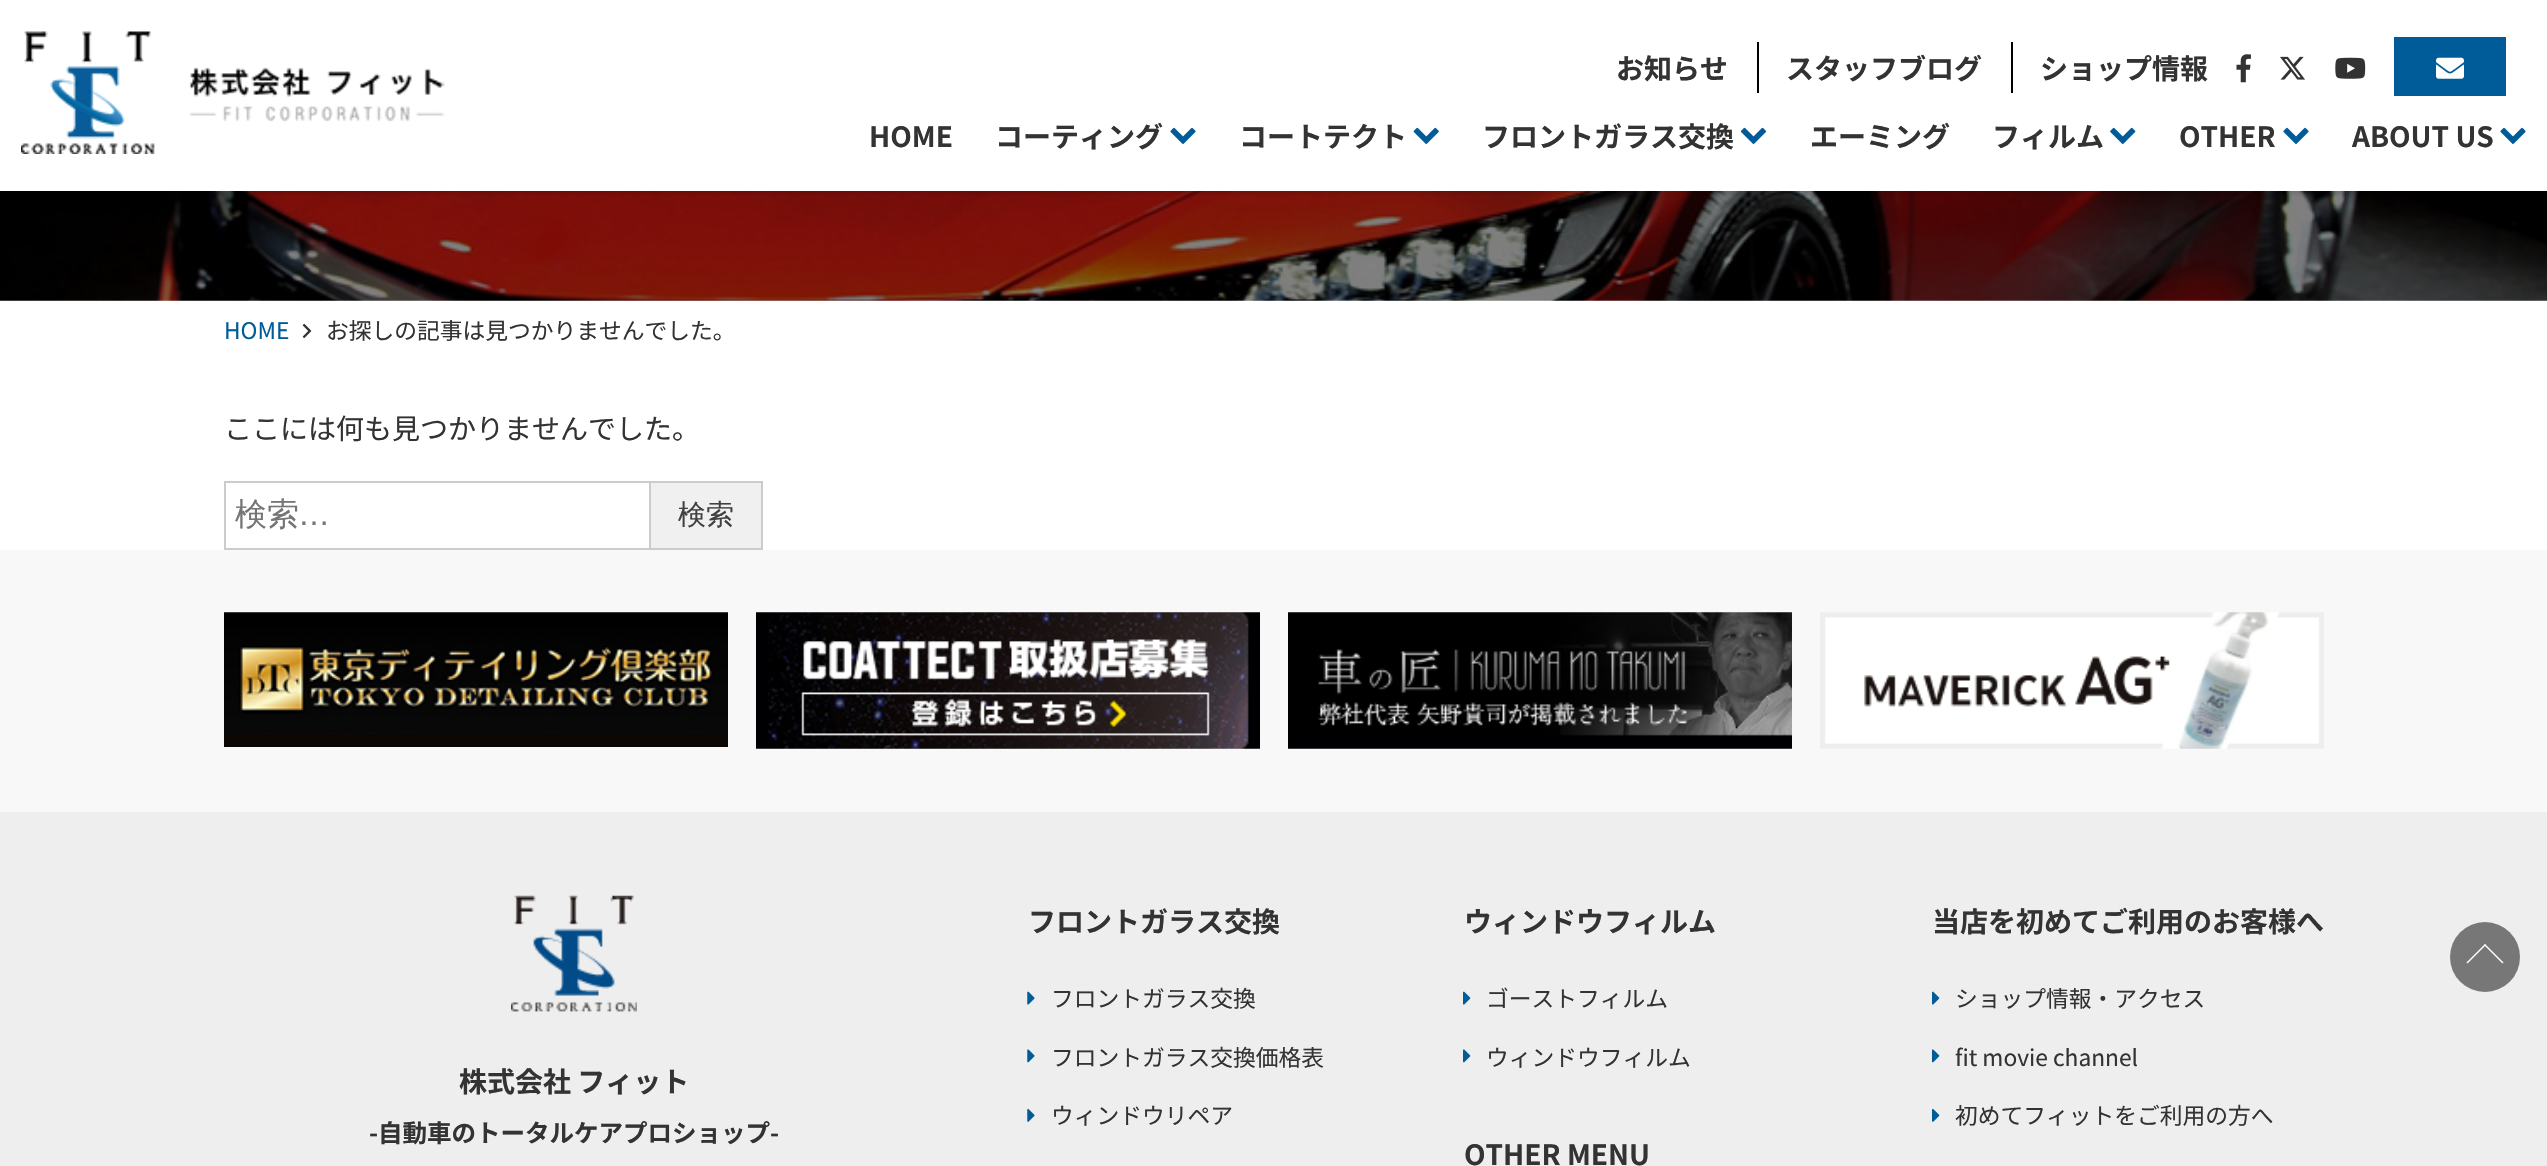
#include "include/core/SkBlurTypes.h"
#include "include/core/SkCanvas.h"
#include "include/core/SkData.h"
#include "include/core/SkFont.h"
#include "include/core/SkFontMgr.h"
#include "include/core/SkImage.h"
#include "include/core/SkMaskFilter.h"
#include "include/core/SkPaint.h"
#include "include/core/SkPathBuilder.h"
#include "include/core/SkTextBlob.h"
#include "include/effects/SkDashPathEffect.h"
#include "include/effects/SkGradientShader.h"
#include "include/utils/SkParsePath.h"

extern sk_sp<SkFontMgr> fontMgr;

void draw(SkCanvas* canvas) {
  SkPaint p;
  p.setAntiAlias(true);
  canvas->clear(SK_ColorWHITE);
  canvas->drawImageRect(SkImages::DeferredFromEncodedData(SkData::MakeFromFileName("images/10.png")), SkRect::MakeLTRB(0, 191, 2547, 301), SkSamplingOptions());
  p.setColor(SkColorSetARGB(26, 0, 0, 0));
  p.setMaskFilter(SkMaskFilter::MakeBlur(kNormal_SkBlurStyle, 2));
  canvas->drawRect(SkRect::MakeLTRB(0, 4, 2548, 194), p);
  p.setMaskFilter(nullptr);
  p.setColor(SK_ColorWHITE);
  canvas->drawRect(SkRect::MakeLTRB(0, 1, 2547, 191), p);
  p.setColor(SK_ColorBLACK);
  canvas->drawRect(SkRect::MakeLTRB(1757, 42, 1759, 93), p);
  canvas->drawRect(SkRect::MakeLTRB(2011, 42, 2013, 93), p);
  canvas->drawImageRect(SkImages::DeferredFromEncodedData(SkData::MakeFromFileName("images/1.png")), SkRect::MakeLTRB(2236, 54, 2251, 83), SkSamplingOptions());
  canvas->drawImageRect(SkImages::DeferredFromEncodedData(SkData::MakeFromFileName("images/2.png")), SkRect::MakeLTRB(2280, 56, 2305, 80), SkSamplingOptions());
  canvas->drawImageRect(SkImages::DeferredFromEncodedData(SkData::MakeFromFileName("images/3.png")), SkRect::MakeLTRB(2335, 57, 2366, 79), SkSamplingOptions());
  p.setColor(SkColorSetRGB(0, 92, 153));
  canvas->drawRect(SkRect::MakeLTRB(2394, 37, 2506, 96), p);
  canvas->drawImageRect(SkImages::DeferredFromEncodedData(SkData::MakeFromFileName("images/4.png")), SkRect::MakeLTRB(2436, 57, 2464, 79), SkSamplingOptions());
  canvas->drawImageRect(SkImages::DeferredFromEncodedData(SkData::MakeFromFileName("images/5.png")), SkRect::MakeLTRB(21, 31, 445, 154), SkSamplingOptions());
  canvas->drawImageRect(SkImages::DeferredFromEncodedData(SkData::MakeFromFileName("images/6.png")), SkRect::MakeLTRB(1170, 127, 1196, 144), SkSamplingOptions());
  canvas->drawImageRect(SkImages::DeferredFromEncodedData(SkData::MakeFromFileName("images/7.png")), SkRect::MakeLTRB(1413, 127, 1439, 144), SkSamplingOptions());
  canvas->drawImageRect(SkImages::DeferredFromEncodedData(SkData::MakeFromFileName("images/8.png")), SkRect::MakeLTRB(1740, 127, 1767, 144), SkSamplingOptions());
  canvas->drawImageRect(SkImages::DeferredFromEncodedData(SkData::MakeFromFileName("images/9.png")), SkRect::MakeLTRB(2110, 127, 2136, 144), SkSamplingOptions());
  canvas->drawImageRect(SkImages::DeferredFromEncodedData(SkData::MakeFromFileName("images/6.png")), SkRect::MakeLTRB(2283, 127, 2309, 144), SkSamplingOptions());
  canvas->drawImageRect(SkImages::DeferredFromEncodedData(SkData::MakeFromFileName("images/6.png")), SkRect::MakeLTRB(2500, 127, 2526, 144), SkSamplingOptions());
  canvas->drawImageRect(SkImages::DeferredFromEncodedData(SkData::MakeFromFileName("images/11.png")), SkRect::MakeLTRB(302, 323, 312, 338), SkSamplingOptions());
  p.setStyle(SkPaint::kStroke_Style);
  p.setStrokeWidth(2);
  p.setColor(SkColorSetRGB(204, 204, 204));
  canvas->drawRect(SkRect::MakeLTRB(225, 482, 650, 549), p);
  p.setStyle(SkPaint::kFill_Style);
  p.setColor(SkColorSetRGB(240, 240, 240));
  canvas->drawRect(SkRect::MakeLTRB(651, 483, 761, 548), p);
  p.setColor(SkColorSetRGB(204, 204, 204));
  canvas->drawRect(SkRect::MakeLTRB(651, 481, 763, 483), p);
  canvas->drawRect(SkRect::MakeLTRB(761, 481, 763, 550), p);
  canvas->drawRect(SkRect::MakeLTRB(651, 548, 763, 550), p);
  p.setColor(SkColorSetRGB(248, 248, 248));
  canvas->drawRect(SkRect::MakeLTRB(0, 550, 2547, 812), p);
  canvas->drawImageRect(SkImages::DeferredFromEncodedData(SkData::MakeFromFileName("images/12.png")), SkRect::MakeLTRB(224, 612, 728, 747), SkSamplingOptions());
  canvas->drawImageRect(SkImages::DeferredFromEncodedData(SkData::MakeFromFileName("images/13.png")), SkRect::MakeLTRB(756, 612, 1260, 749), SkSamplingOptions());
  canvas->drawImageRect(SkImages::DeferredFromEncodedData(SkData::MakeFromFileName("images/14.png")), SkRect::MakeLTRB(1288, 612, 1792, 749), SkSamplingOptions());
  canvas->drawImageRect(SkImages::DeferredFromEncodedData(SkData::MakeFromFileName("images/15.png")), SkRect::MakeLTRB(1820, 612, 2324, 749), SkSamplingOptions());
  p.setColor(SkColorSetRGB(238, 238, 238));
  canvas->drawRect(SkRect::MakeLTRB(0, 812, 2547, 1166), p);
  canvas->drawImageRect(SkImages::DeferredFromEncodedData(SkData::MakeFromFileName("images/16.png")), SkRect::MakeLTRB(511, 895, 637, 1012), SkSamplingOptions());
  canvas->drawImageRect(SkImages::DeferredFromEncodedData(SkData::MakeFromFileName("images/17.png")), SkRect::MakeLTRB(1027, 991, 1035, 1005), SkSamplingOptions());
  canvas->drawImageRect(SkImages::DeferredFromEncodedData(SkData::MakeFromFileName("images/18.png")), SkRect::MakeLTRB(1027, 1049, 1035, 1063), SkSamplingOptions());
  canvas->drawImageRect(SkImages::DeferredFromEncodedData(SkData::MakeFromFileName("images/19.png")), SkRect::MakeLTRB(1027, 1108, 1035, 1122), SkSamplingOptions());
  canvas->drawImageRect(SkImages::DeferredFromEncodedData(SkData::MakeFromFileName("images/20.png")), SkRect::MakeLTRB(1463, 991, 1471, 1005), SkSamplingOptions());
  canvas->drawImageRect(SkImages::DeferredFromEncodedData(SkData::MakeFromFileName("images/21.png")), SkRect::MakeLTRB(1463, 1049, 1471, 1063), SkSamplingOptions());
  canvas->drawImageRect(SkImages::DeferredFromEncodedData(SkData::MakeFromFileName("images/20.png")), SkRect::MakeLTRB(1932, 991, 1940, 1005), SkSamplingOptions());
  canvas->drawImageRect(SkImages::DeferredFromEncodedData(SkData::MakeFromFileName("images/21.png")), SkRect::MakeLTRB(1932, 1049, 1940, 1063), SkSamplingOptions());
  canvas->drawImageRect(SkImages::DeferredFromEncodedData(SkData::MakeFromFileName("images/22.png")), SkRect::MakeLTRB(1932, 1108, 1940, 1122), SkSamplingOptions());
  p.setColor(SkColorSetRGB(119, 119, 119));
  canvas->drawCircle(2485, 957, 35, p);
  p.setColor(SK_ColorWHITE);
  canvas->drawPath(SkPathBuilder().moveTo(2466.5f, 962.5f).lineTo(2485, 944).lineTo(2486, 945).lineTo(2467.5f, 963.5f).close().detach(), p);
  canvas->drawPath(SkPathBuilder().moveTo(2484, 945).lineTo(2485, 944).lineTo(2503.5f, 962.5f).lineTo(2502.5f, 963.5f).close().detach(), p);
  SkFont font1(fontMgr->matchFamilyStyle("Noto Sans JP", SkFontStyle::Bold()), 28);
  font1.setSubpixel(true);
  p.setColor(SkColorSetRGB(51, 51, 51));
  canvas->drawString("お知らせ", 1616, 79, font1, p);
  canvas->drawString("スタッフブログ", 1786, 79, font1, p);
  canvas->drawString("ショップ情報", 2040, 79, font1, p);
  canvas->drawString("HOME", 869, 147, font1, p);
  canvas->drawString("コーティング", 995, 147, font1, p);
  canvas->drawString("コートテクト", 1239, 147, font1, p);
  canvas->drawString("フロントガラス交換", 1482, 147, font1, p);
  canvas->drawString("エーミング", 1810, 147, font1, p);
  canvas->drawString("フィルム", 1992, 147, font1, p);
  canvas->drawString("OTHER", 2179, 147, font1, p);
  canvas->drawString("ABOUT US", 2352, 147, font1, p);
  SkFont font2(fontMgr->matchFamilyStyle("Noto Sans JP", SkFontStyle::Normal()), 22.75f);
  font2.setSubpixel(true);
  p.setColor(SkColorSetRGB(0, 92, 153));
  canvas->drawString("HOME", 224, 339, font2, p);
  p.setColor(SkColorSetRGB(51, 51, 51));
  canvas->drawString("お探しの記事は見つかりませんでした。", 326, 339, font2, p);
  SkFont font3(fontMgr->matchFamilyStyle("Noto Sans JP", SkFontStyle::Normal()), 28);
  font3.setSubpixel(true);
  canvas->drawString("ここには何も見つかりませんでした。", 224, 439, font3, p);
  SkFont font4(fontMgr->matchFamilyStyle("WenQuanYi Zen Hei", SkFontStyle(500, SkFontStyle::kNormal_Width, SkFontStyle::kUpright_Slant)), 32);
  font4.setSubpixel(true);
  p.setColor(SkColorSetRGB(117, 117, 117));
  canvas->drawString("検索", 235, 525, font4, p);
  SkFont font5(fontMgr->matchFamilyStyle("Liberation Sans", SkFontStyle::Normal()), 32);
  font5.setSubpixel(true);
  canvas->drawString("…", 298, 525, font5, p);
  SkFont font6(fontMgr->matchFamilyStyle("WenQuanYi Zen Hei", SkFontStyle(500, SkFontStyle::kNormal_Width, SkFontStyle::kUpright_Slant)), 28);
  font6.setSubpixel(true);
  p.setColor(SkColorSetRGB(64, 64, 64));
  canvas->drawString("検索", 678, 524, font6, p);
  p.setColor(SkColorSetRGB(51, 51, 51));
  canvas->drawString("株式会社 フィット", 459, 1092, font1, p);
  SkFont font7(fontMgr->matchFamilyStyle("Noto Sans JP", SkFontStyle::Bold()), 24.5f);
  font7.setSubpixel(true);
  canvas->drawString("-自動車のトータルケアプロショップ-", 369, 1142, font7, p);
  canvas->drawString("フロントガラス交換", 1028, 932, font1, p);
  canvas->drawString("フロントガラス交換", 1051, 1007, font2, p);
  canvas->drawString("フロントガラス交換価格表", 1051, 1066, font2, p);
  canvas->drawString("ウィンドウリペア", 1051, 1124, font2, p);
  canvas->drawString("ウィンドウフィルム", 1464, 932, font1, p);
  canvas->drawString("ゴーストフィルム", 1486, 1007, font2, p);
  canvas->drawString("ウィンドウフィルム", 1486, 1066, font2, p);
  canvas->drawString("OTHER MENU", 1464, 1165, font1, p);
  canvas->drawString("当店を初めてご利用のお客様へ", 1932, 932, font1, p);
  canvas->drawString("ショップ情報・アクセス", 1955, 1007, font2, p);
  canvas->drawString("fit movie channel", 1955, 1066, font2, p);
  canvas->drawString("初めてフィットをご利用の方へ", 1955, 1124, font2, p);
}
